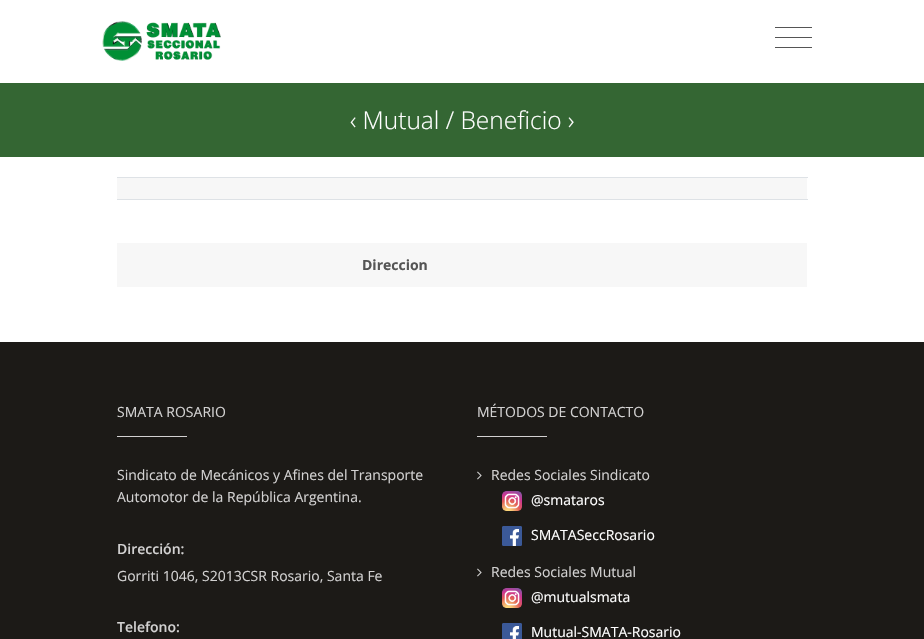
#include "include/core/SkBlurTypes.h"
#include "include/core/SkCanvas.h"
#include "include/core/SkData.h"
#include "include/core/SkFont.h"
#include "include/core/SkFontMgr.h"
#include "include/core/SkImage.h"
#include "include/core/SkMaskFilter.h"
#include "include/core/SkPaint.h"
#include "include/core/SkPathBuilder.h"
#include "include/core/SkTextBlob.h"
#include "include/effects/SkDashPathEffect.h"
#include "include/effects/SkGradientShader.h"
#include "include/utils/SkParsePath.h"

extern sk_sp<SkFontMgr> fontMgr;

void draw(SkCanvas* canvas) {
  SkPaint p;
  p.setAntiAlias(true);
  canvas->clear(SK_ColorWHITE);
  canvas->drawImageRect(SkImages::DeferredFromEncodedData(SkData::MakeFromFileName("images/1.png")), SkRect::MakeLTRB(102, 21, 221, 61), SkSamplingOptions());
  p.setColor(SkColorSetRGB(85, 85, 85));
  canvas->drawRect(SkRect::MakeLTRB(775, 27, 812, 28), p);
  canvas->drawRect(SkRect::MakeLTRB(775, 37, 812, 38), p);
  canvas->drawRect(SkRect::MakeLTRB(775, 47, 812, 48), p);
  p.setColor(SkColorSetRGB(52, 102, 51));
  canvas->drawRect(SkRect::MakeLTRB(0, 83, 924, 157), p);
  p.setColor(SkColorSetRGB(247, 247, 247));
  canvas->drawRect(SkRect::MakeLTRB(117, 178, 807, 199), p);
  p.setColor(SkColorSetRGB(222, 226, 230));
  canvas->drawRect(SkRect::MakeLTRB(117, 177, 808, 178), p);
  canvas->drawRect(SkRect::MakeLTRB(117, 199, 808, 200), p);
  p.setColor(SkColorSetRGB(247, 247, 247));
  canvas->drawRect(SkRect::MakeLTRB(117, 243, 807, 287), p);
  p.setColor(SkColorSetRGB(28, 26, 23));
  canvas->drawRect(SkRect::MakeLTRB(0, 342, 924, 639), p);
  p.setColor(SkColorSetRGB(210, 209, 209));
  canvas->drawRect(SkRect::MakeLTRB(117, 436, 187, 437), p);
  canvas->drawRect(SkRect::MakeLTRB(477, 436, 547, 437), p);
  canvas->drawImageRect(SkImages::DeferredFromEncodedData(SkData::MakeFromFileName("images/2.png")), SkRect::MakeLTRB(477, 471, 482, 480), SkSamplingOptions());
  canvas->drawImageRect(SkImages::DeferredFromEncodedData(SkData::MakeFromFileName("images/3.png")), SkRect::MakeLTRB(502, 491, 522, 511), SkSamplingOptions());
  canvas->drawImageRect(SkImages::DeferredFromEncodedData(SkData::MakeFromFileName("images/4.png")), SkRect::MakeLTRB(502, 526, 522, 546), SkSamplingOptions());
  canvas->drawImageRect(SkImages::DeferredFromEncodedData(SkData::MakeFromFileName("images/2.png")), SkRect::MakeLTRB(477, 568, 482, 577), SkSamplingOptions());
  canvas->drawImageRect(SkImages::DeferredFromEncodedData(SkData::MakeFromFileName("images/3.png")), SkRect::MakeLTRB(502, 588, 522, 608), SkSamplingOptions());
  canvas->drawImageRect(SkImages::DeferredFromEncodedData(SkData::MakeFromFileName("images/5.png")), SkRect::MakeLTRB(502, 623, 522, 639), SkSamplingOptions());
  SkFont font1(fontMgr->matchFamilyStyle("Open Sans", SkFontStyle(300, SkFontStyle::kNormal_Width, SkFontStyle::kUpright_Slant)), 24.5f);
  font1.setSubpixel(true);
  p.setColor(SK_ColorWHITE);
  canvas->drawString("‹ Mutual / Beneficio ›", 350, 129, font1, p);
  SkFont font2(fontMgr->matchFamilyStyle("Open Sans", SkFontStyle::Bold()), 14);
  font2.setSubpixel(true);
  p.setColor(SkColorSetRGB(85, 85, 85));
  canvas->drawString("Direccion", 362, 270, font2, p);
  SkFont font3(fontMgr->matchFamilyStyle("Open Sans", SkFontStyle::Normal()), 14);
  font3.setSubpixel(true);
  p.setColor(SkColorSetRGB(210, 209, 209));
  canvas->drawString("SMATA ROSARIO", 117, 417, font3, p);
  canvas->drawString("Sindicato de Mecánicos y Afines del Transporte", 117, 480, font3, p);
  canvas->drawString("Automotor de la República Argentina.", 117, 502, font3, p);
  SkFont font4(fontMgr->matchFamilyStyle("Open Sans", SkFontStyle(600, SkFontStyle::kNormal_Width, SkFontStyle::kUpright_Slant)), 14);
  font4.setSubpixel(true);
  canvas->drawString("Dirección:", 117, 554, font4, p);
  canvas->drawString("Gorriti 1046, S2013CSR Rosario, Santa Fe", 117, 581, font3, p);
  canvas->drawString("Telefono:", 117, 632, font4, p);
  canvas->drawString("MÉTODOS DE CONTACTO", 477, 417, font3, p);
  canvas->drawString("Redes Sociales Sindicato", 491, 480, font3, p);
  p.setColor(SK_ColorWHITE);
  canvas->drawString("@smataros", 531, 505, font3, p);
  canvas->drawString("SMATASeccRosario", 531, 540, font3, p);
  p.setColor(SkColorSetRGB(210, 209, 209));
  canvas->drawString("Redes Sociales Mutual", 491, 577, font3, p);
  p.setColor(SK_ColorWHITE);
  canvas->drawString("@mutualsmata", 531, 602, font3, p);
  canvas->drawString("Mutual-SMATA-Rosario", 531, 637, font3, p);
}
